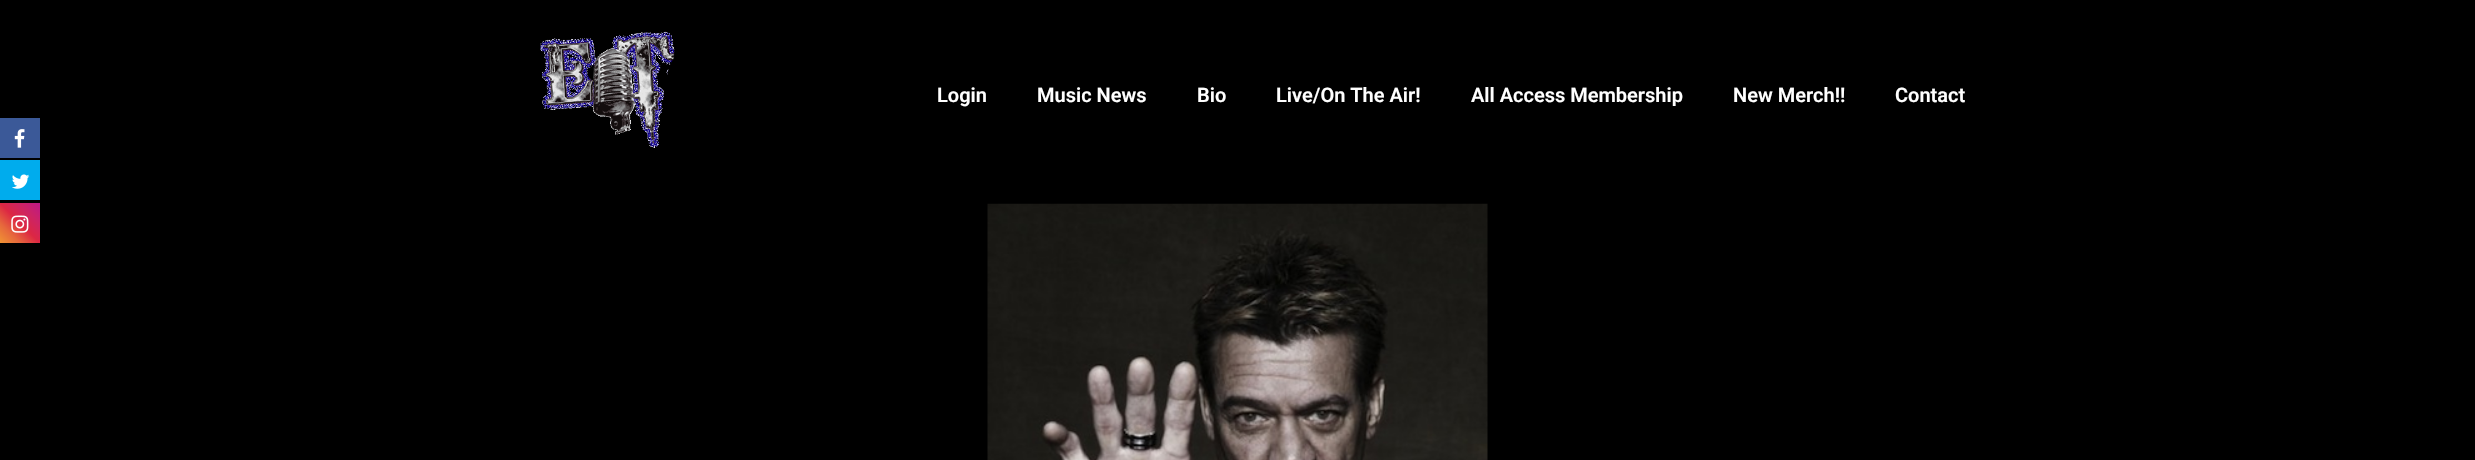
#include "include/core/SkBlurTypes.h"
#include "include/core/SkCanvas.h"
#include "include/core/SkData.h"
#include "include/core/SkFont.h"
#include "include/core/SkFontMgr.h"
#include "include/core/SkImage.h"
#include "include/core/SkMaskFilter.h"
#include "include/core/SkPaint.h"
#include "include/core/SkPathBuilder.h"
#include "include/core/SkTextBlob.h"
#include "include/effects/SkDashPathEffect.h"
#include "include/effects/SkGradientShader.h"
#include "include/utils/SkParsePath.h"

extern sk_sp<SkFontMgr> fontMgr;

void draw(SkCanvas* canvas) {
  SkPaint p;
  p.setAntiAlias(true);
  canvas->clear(SK_ColorBLACK);
  canvas->drawImageRect(SkImages::DeferredFromEncodedData(SkData::MakeFromFileName("images/1.png")), SkRect::MakeLTRB(540, 31, 675, 148), SkSamplingOptions());
  p.setColor(SkColorSetRGB(59, 89, 152));
  canvas->drawRect(SkRect::MakeLTRB(0, 118, 40, 158), p);
  canvas->drawImageRect(SkImages::DeferredFromEncodedData(SkData::MakeFromFileName("images/2.png")), SkRect::MakeLTRB(14, 129, 25, 148), SkSamplingOptions());
  p.setColor(SkColorSetRGB(0, 172, 237));
  canvas->drawRect(SkRect::MakeLTRB(0, 160, 40, 200), p);
  canvas->drawImageRect(SkImages::DeferredFromEncodedData(SkData::MakeFromFileName("images/3.png")), SkRect::MakeLTRB(12, 174, 30, 189), SkSamplingOptions());
  {
    const SkColor colors[] = {SkColorSetRGB(240, 148, 51), SkColorSetRGB(230, 104, 60), SkColorSetRGB(220, 39, 67), SkColorSetRGB(204, 35, 102), SkColorSetRGB(188, 24, 136)};
    const float stops[] = {0, 0.25f, 0.5f, 0.75f, 1};
    const SkPoint ends[] = {{0, 243}, {40, 203}};
    p.setShader(SkGradientShader::MakeLinear(ends, colors, stops, 5, SkTileMode::kClamp));
    p.setAlpha(255);
  }
  canvas->drawRect(SkRect::MakeLTRB(0, 203, 40, 243), p);
  canvas->drawImageRect(SkImages::DeferredFromEncodedData(SkData::MakeFromFileName("images/4.png")), SkRect::MakeLTRB(11, 215, 29, 233), SkSamplingOptions());
  canvas->drawImageRect(SkImages::DeferredFromEncodedData(SkData::MakeFromFileName("images/5.png")), SkRect::MakeLTRB(987, 203, 1488, 460), SkSamplingOptions());
  SkFont font1(fontMgr->matchFamilyStyle("Roboto", SkFontStyle(600, SkFontStyle::kNormal_Width, SkFontStyle::kUpright_Slant)), 20);
  font1.setSubpixel(true);
  p.setShader(nullptr);
  p.setColor(SK_ColorWHITE);
  canvas->drawString("Login", 937, 102, font1, p);
  canvas->drawString("Music News", 1037, 102, font1, p);
  canvas->drawString("Bio", 1197, 102, font1, p);
  canvas->drawString("Live/On The Air!", 1276, 102, font1, p);
  canvas->drawString("All Access Membership", 1471, 102, font1, p);
  canvas->drawString("New Merch!!", 1733, 102, font1, p);
  canvas->drawString("Contact", 1895, 102, font1, p);
}
